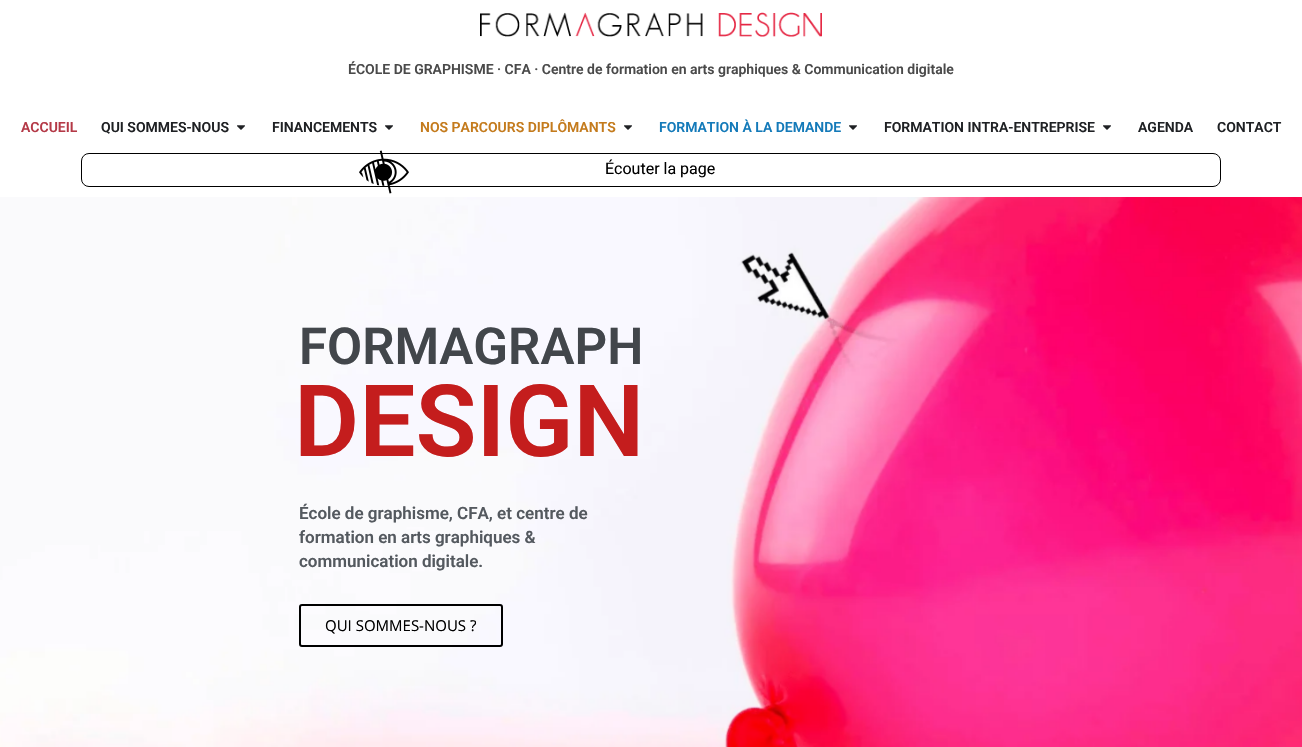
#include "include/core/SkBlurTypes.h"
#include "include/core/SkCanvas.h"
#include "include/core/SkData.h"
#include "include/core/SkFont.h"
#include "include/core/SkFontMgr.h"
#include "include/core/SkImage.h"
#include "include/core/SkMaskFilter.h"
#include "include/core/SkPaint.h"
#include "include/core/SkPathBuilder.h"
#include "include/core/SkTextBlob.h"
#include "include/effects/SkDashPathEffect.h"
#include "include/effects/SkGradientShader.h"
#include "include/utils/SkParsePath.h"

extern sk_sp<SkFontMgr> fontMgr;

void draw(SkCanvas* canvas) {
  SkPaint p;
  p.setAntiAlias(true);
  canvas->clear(SK_ColorWHITE);
  canvas->drawImageRect(SkImages::DeferredFromEncodedData(SkData::MakeFromFileName("images/1.png")), SkRect::MakeLTRB(480, 12, 822, 37), SkSamplingOptions());
  canvas->drawImageRect(SkImages::DeferredFromEncodedData(SkData::MakeFromFileName("images/2.png")), SkRect::MakeLTRB(237, 125, 245, 130), SkSamplingOptions());
  canvas->drawImageRect(SkImages::DeferredFromEncodedData(SkData::MakeFromFileName("images/2.png")), SkRect::MakeLTRB(385, 125, 393, 130), SkSamplingOptions());
  canvas->drawImageRect(SkImages::DeferredFromEncodedData(SkData::MakeFromFileName("images/2.png")), SkRect::MakeLTRB(624, 125, 632, 130), SkSamplingOptions());
  canvas->drawImageRect(SkImages::DeferredFromEncodedData(SkData::MakeFromFileName("images/2.png")), SkRect::MakeLTRB(849, 125, 857, 130), SkSamplingOptions());
  canvas->drawImageRect(SkImages::DeferredFromEncodedData(SkData::MakeFromFileName("images/2.png")), SkRect::MakeLTRB(1103, 125, 1111, 130), SkSamplingOptions());
  p.setStyle(SkPaint::kStroke_Style);
  p.setStrokeWidth(1);
  p.setColor(SK_ColorBLACK);
  canvas->drawRoundRect(SkRect::MakeLTRB(81.5f, 153.5f, 1220.5f, 186.5f), 7.5f, 7.5f, p);
  canvas->drawImageRect(SkImages::DeferredFromEncodedData(SkData::MakeFromFileName("images/3.png")), SkRect::MakeLTRB(359, 150, 409, 194), SkSamplingOptions());
  canvas->drawImageRect(SkImages::DeferredFromEncodedData(SkData::MakeFromFileName("images/4.png")), SkRect::MakeLTRB(0, 197, 1302, 747), SkSamplingOptions());
  p.setStrokeWidth(2);
  canvas->drawRoundRect(SkRect::MakeLTRB(300, 605, 502, 646), 2, 2, p);
  SkFont font1(fontMgr->matchFamilyStyle("Roboto", SkFontStyle(600, SkFontStyle::kNormal_Width, SkFontStyle::kUpright_Slant)), 14);
  font1.setSubpixel(true);
  p.setStyle(SkPaint::kFill_Style);
  p.setColor(SkColorSetRGB(74, 74, 74));
  canvas->drawString("ÉCOLE DE GRAPHISME · CFA · Centre de formation en arts graphiques & Communication digitale", 348, 74, font1, p);
  p.setColor(SkColorSetRGB(180, 57, 71));
  canvas->drawString("ACCUEIL", 21, 132, font1, p);
  p.setColor(SkColorSetRGB(31, 33, 36));
  canvas->drawString("QUI SOMMES-NOUS", 101, 132, font1, p);
  canvas->drawString("FINANCEMENTS", 272, 132, font1, p);
  p.setColor(SkColorSetRGB(196, 123, 29));
  canvas->drawString("NOS PARCOURS DIPLÔMANTS", 420, 132, font1, p);
  p.setColor(SkColorSetRGB(20, 122, 185));
  canvas->drawString("FORMATION À LA DEMANDE", 659, 132, font1, p);
  p.setColor(SkColorSetRGB(31, 33, 36));
  canvas->drawString("FORMATION INTRA-ENTREPRISE", 884, 132, font1, p);
  canvas->drawString("AGENDA", 1138, 132, font1, p);
  canvas->drawString("CONTACT", 1217, 132, font1, p);
  SkFont font2(fontMgr->matchFamilyStyle("Roboto", SkFontStyle::Normal()), 16);
  font2.setSubpixel(true);
  p.setColor(SK_ColorBLACK);
  canvas->drawString("Écouter la page", 605, 174, font2, p);
  SkFont font3(fontMgr->matchFamilyStyle("Roboto", SkFontStyle(600, SkFontStyle::kNormal_Width, SkFontStyle::kUpright_Slant)), 51);
  font3.setSubpixel(true);
  p.setColor(SkColorSetRGB(66, 70, 75));
  canvas->drawString("FORMAGRAPH", 299, 364, font3, p);
  SkFont font4(fontMgr->matchFamilyStyle("Roboto", SkFontStyle(600, SkFontStyle::kNormal_Width, SkFontStyle::kUpright_Slant)), 100);
  font4.setSubpixel(true);
  p.setColor(SkColorSetRGB(196, 29, 29));
  canvas->drawString("DESIGN", 294, 456, font4, p);
  SkFont font5(fontMgr->matchFamilyStyle("Roboto", SkFontStyle(600, SkFontStyle::kNormal_Width, SkFontStyle::kUpright_Slant)), 17);
  font5.setSubpixel(true);
  p.setColor(SkColorSetRGB(84, 89, 95));
  canvas->drawString("École de graphisme, CFA, et centre de", 299, 519, font5, p);
  canvas->drawString("formation en arts graphiques &", 299, 543, font5, p);
  canvas->drawString("communication digitale.", 299, 567, font5, p);
  SkFont font6(fontMgr->matchFamilyStyle("Open Sans", SkFontStyle::Normal()), 15);
  font6.setSubpixel(true);
  p.setColor(SK_ColorBLACK);
  canvas->drawString("QUI SOMMES-NOUS ?", 325, 631, font6, p);
}
